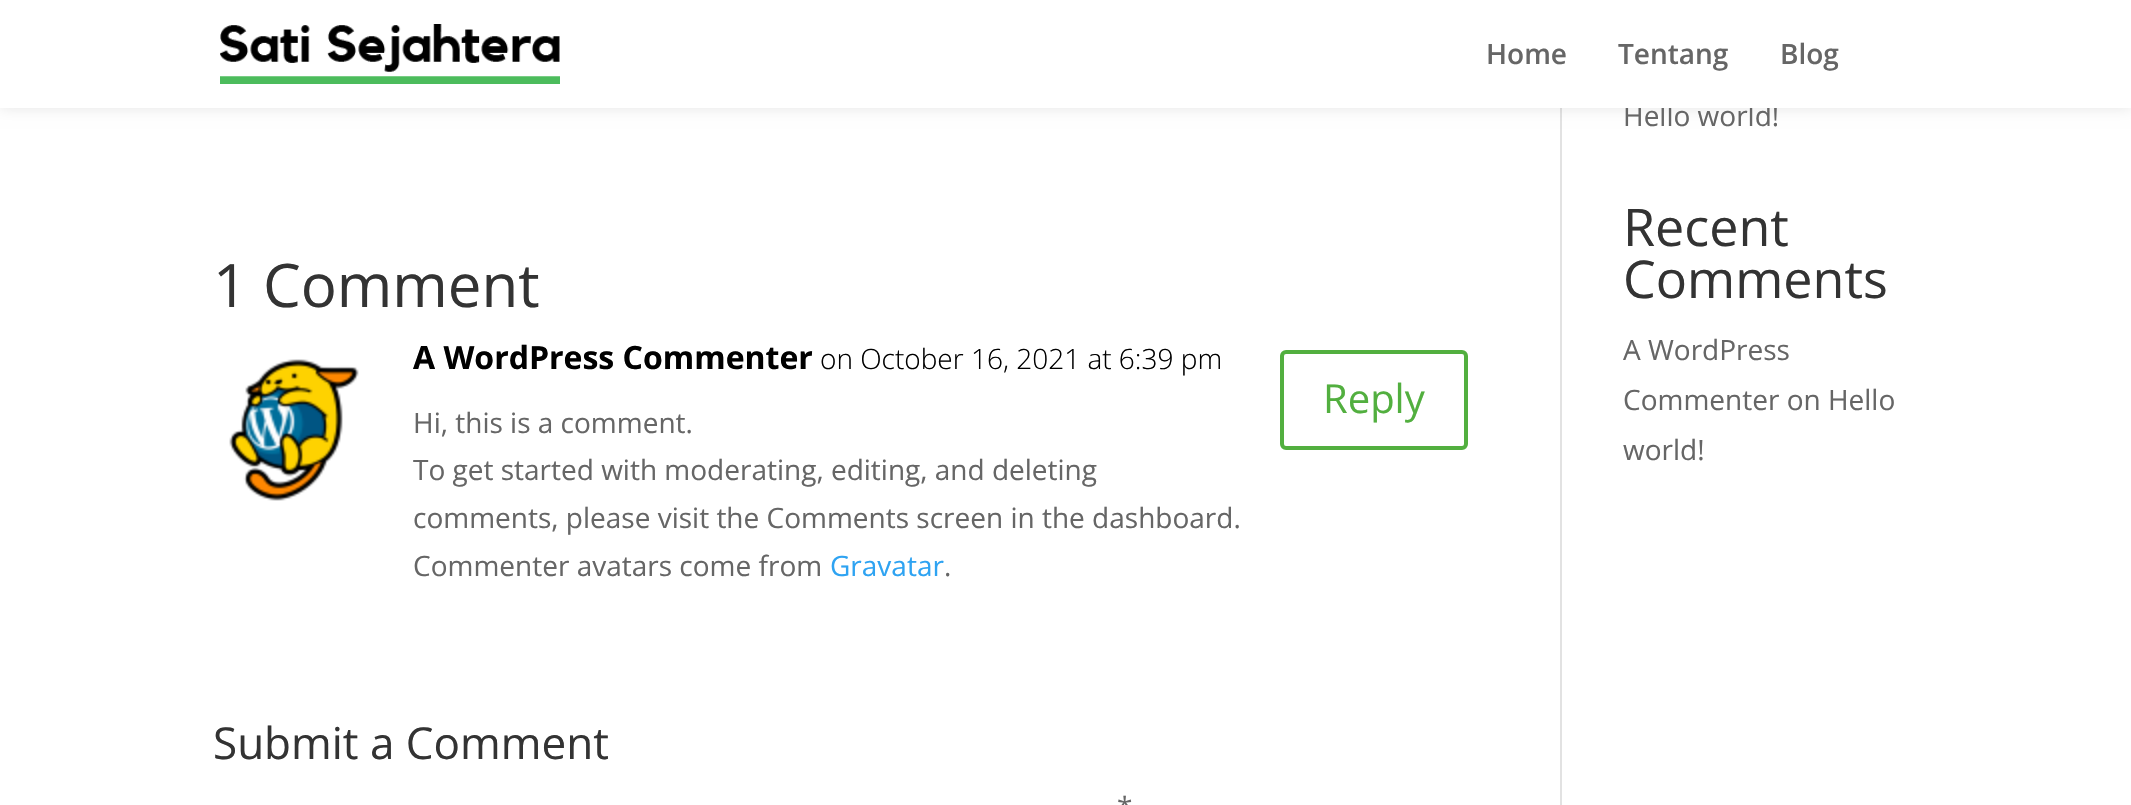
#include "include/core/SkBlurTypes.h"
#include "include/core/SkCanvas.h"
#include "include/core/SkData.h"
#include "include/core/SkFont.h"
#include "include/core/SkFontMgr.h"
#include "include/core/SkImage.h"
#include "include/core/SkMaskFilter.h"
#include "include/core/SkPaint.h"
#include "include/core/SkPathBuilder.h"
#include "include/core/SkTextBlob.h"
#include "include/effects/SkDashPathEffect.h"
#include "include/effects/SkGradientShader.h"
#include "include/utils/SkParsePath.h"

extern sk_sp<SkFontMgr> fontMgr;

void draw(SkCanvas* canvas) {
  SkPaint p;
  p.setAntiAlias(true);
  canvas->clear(SK_ColorWHITE);
  p.setColor(SkColorSetRGB(226, 226, 226));
  canvas->drawRect(SkRect::MakeLTRB(1560, 108, 1562, 805), p);
  p.setColor(SkColorSetARGB(26, 0, 0, 0));
  p.setMaskFilter(SkMaskFilter::MakeBlur(kNormal_SkBlurStyle, 7));
  canvas->drawRect(SkRect::MakeLTRB(0, 0, 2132, 108), p);
  p.setMaskFilter(nullptr);
  canvas->drawImageRect(SkImages::DeferredFromEncodedData(SkData::MakeFromFileName("images/2.png")), SkRect::MakeLTRB(229, 359, 359, 501), SkSamplingOptions());
  p.setStyle(SkPaint::kStroke_Style);
  p.setStrokeWidth(4);
  p.setColor(SkColorSetRGB(82, 175, 63));
  canvas->drawRoundRect(SkRect::MakeLTRB(1282, 352, 1466, 448), 4, 4, p);
  SkFont font1(fontMgr->matchFamilyStyle("Open Sans", SkFontStyle::Normal()), 60);
  font1.setSubpixel(true);
  p.setStyle(SkPaint::kFill_Style);
  p.setColor(SkColorSetRGB(51, 51, 51));
  canvas->drawString("1 Comment", 213, 307, font1, p);
  SkFont font2(fontMgr->matchFamilyStyle("Open Sans", SkFontStyle::Bold()), 32);
  font2.setSubpixel(true);
  p.setColor(SK_ColorBLACK);
  canvas->drawString("A WordPress Commenter", 413, 369, font2, p);
  SkFont font3(fontMgr->matchFamilyStyle("Open Sans", SkFontStyle(300, SkFontStyle::kNormal_Width, SkFontStyle::kUpright_Slant)), 28);
  font3.setSubpixel(true);
  canvas->drawString("on October 16, 2021 at 6:39 pm", 820, 369, font3, p);
  SkFont font4(fontMgr->matchFamilyStyle("Open Sans", SkFontStyle::Normal()), 40);
  font4.setSubpixel(true);
  p.setColor(SkColorSetRGB(82, 175, 63));
  canvas->drawString("Reply", 1323, 413, font4, p);
  SkFont font5(fontMgr->matchFamilyStyle("Open Sans", SkFontStyle::Normal()), 28);
  font5.setSubpixel(true);
  p.setColor(SkColorSetRGB(102, 102, 102));
  canvas->drawString("Hi, this is a comment.", 413, 433, font5, p);
  canvas->drawString("To get started with moderating, editing, and deleting", 413, 480, font5, p);
  canvas->drawString("comments, please visit the Comments screen in the dashboard.", 413, 528, font5, p);
  canvas->drawString("Commenter avatars come from", 413, 576, font5, p);
  p.setColor(SkColorSetRGB(46, 163, 242));
  canvas->drawString("Gravatar", 830, 576, font5, p);
  p.setColor(SkColorSetRGB(102, 102, 102));
  canvas->drawString(".", 944, 576, font5, p);
  SkFont font6(fontMgr->matchFamilyStyle("Open Sans", SkFontStyle::Normal()), 44);
  font6.setSubpixel(true);
  p.setColor(SkColorSetRGB(51, 51, 51));
  canvas->drawString("Submit a Comment", 213, 759, font6, p);
  p.setColor(SkColorSetRGB(102, 102, 102));
  canvas->drawString("*", 1117, 817, font5, p);
  canvas->drawString("Hello world!", 1623, 126, font5, p);
  p.setColor(SK_ColorWHITE);
  canvas->drawRect(SkRect::MakeLTRB(0, 0, 2131, 108), p);
  SkFont font7(fontMgr->matchFamilyStyle("Open Sans", SkFontStyle(600, SkFontStyle::kNormal_Width, SkFontStyle::kUpright_Slant)), 28);
  font7.setSubpixel(true);
  p.setColor(SkColorSetRGB(102, 102, 102));
  canvas->drawString("Blog", 1780, 64, font7, p);
  canvas->drawString("Tentang", 1618, 64, font7, p);
  canvas->drawString("Home", 1486, 64, font7, p);
  canvas->drawImageRect(SkImages::DeferredFromEncodedData(SkData::MakeFromFileName("images/1.png")), SkRect::MakeLTRB(220, 24, 560, 84), SkSamplingOptions());
  SkFont font8(fontMgr->matchFamilyStyle("Open Sans", SkFontStyle::Normal()), 52);
  font8.setSubpixel(true);
  p.setColor(SkColorSetRGB(51, 51, 51));
  canvas->drawString("Recent", 1623, 246, font8, p);
  canvas->drawString("Comments", 1623, 298, font8, p);
  p.setColor(SkColorSetRGB(102, 102, 102));
  canvas->drawString("A WordPress", 1623, 360, font5, p);
  canvas->drawString("Commenter on Hello", 1623, 410, font5, p);
  canvas->drawString("world!", 1623, 460, font5, p);
}
